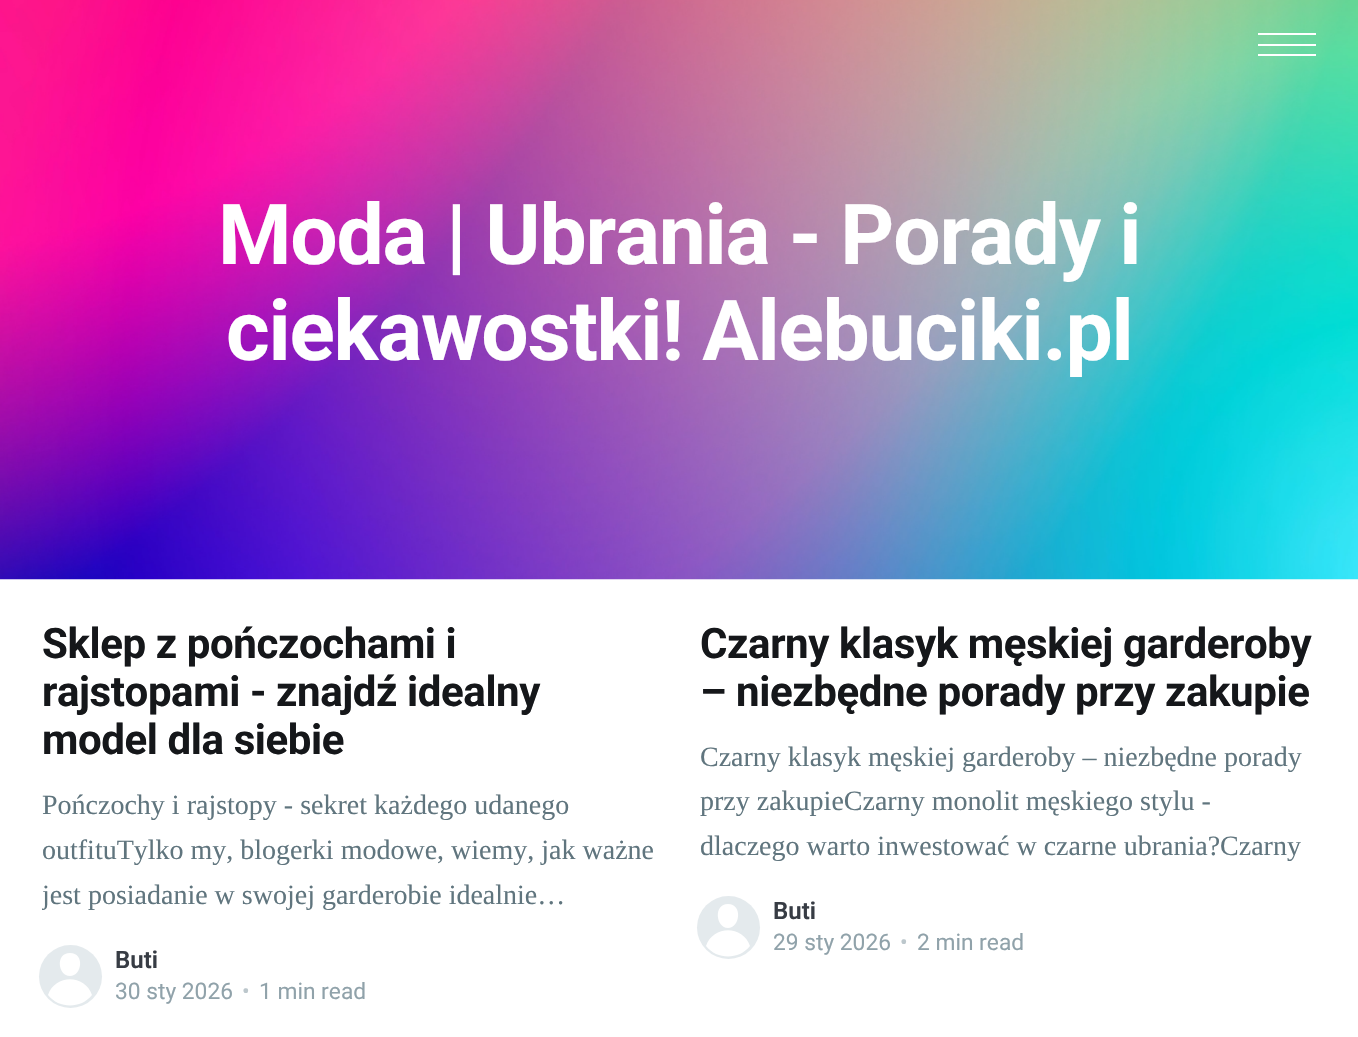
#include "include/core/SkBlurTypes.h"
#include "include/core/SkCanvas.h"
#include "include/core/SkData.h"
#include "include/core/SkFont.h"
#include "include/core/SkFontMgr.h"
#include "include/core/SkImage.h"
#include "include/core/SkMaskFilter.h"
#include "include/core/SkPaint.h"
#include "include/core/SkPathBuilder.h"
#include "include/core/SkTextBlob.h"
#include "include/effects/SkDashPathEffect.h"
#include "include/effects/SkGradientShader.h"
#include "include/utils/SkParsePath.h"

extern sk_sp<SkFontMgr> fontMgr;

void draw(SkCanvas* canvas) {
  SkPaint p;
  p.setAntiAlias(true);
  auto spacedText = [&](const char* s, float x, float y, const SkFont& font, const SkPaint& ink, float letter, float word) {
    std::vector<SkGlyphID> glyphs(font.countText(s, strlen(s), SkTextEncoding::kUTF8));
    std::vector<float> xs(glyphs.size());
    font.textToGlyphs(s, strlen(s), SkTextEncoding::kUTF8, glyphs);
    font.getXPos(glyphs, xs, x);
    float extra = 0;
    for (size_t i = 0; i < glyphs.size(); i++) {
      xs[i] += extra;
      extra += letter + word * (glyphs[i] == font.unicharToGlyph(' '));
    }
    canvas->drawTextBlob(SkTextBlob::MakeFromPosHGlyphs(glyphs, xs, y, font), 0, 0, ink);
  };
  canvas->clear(SK_ColorWHITE);
  canvas->drawImageRect(SkImages::DeferredFromEncodedData(SkData::MakeFromFileName("images/1.png")), SkRect::MakeLTRB(0, 0, 1358, 580), SkSamplingOptions());
  p.setColor(SK_ColorWHITE);
  canvas->drawRect(SkRect::MakeLTRB(1258, 33, 1316, 35), p);
  canvas->drawRect(SkRect::MakeLTRB(1258, 54, 1316, 56), p);
  canvas->drawRect(SkRect::MakeLTRB(1258, 44, 1316, 46), p);
  p.setColor(SkColorSetRGB(228, 234, 237));
  canvas->drawCircle(70.5f, 976.5f, 31.5f, p);
  p.setColor(SK_ColorWHITE);
  canvas->drawPath(SkPathBuilder(SkPathFillType::kEvenOdd).moveTo(48, 995).cubicTo(55, 974, 85, 974, 92, 995).cubicTo(81, 1009, 59, 1009, 48, 995).close().moveTo(70, 976).cubicTo(82, 976, 85, 953, 70, 953).cubicTo(55, 953, 58, 976, 70, 976).close().detach(), p);
  p.setColor(SkColorSetRGB(228, 234, 237));
  canvas->drawCircle(728.5f, 927.5f, 31.5f, p);
  p.setColor(SK_ColorWHITE);
  canvas->drawPath(SkPathBuilder(SkPathFillType::kEvenOdd).moveTo(706, 946).cubicTo(713, 925, 743, 925, 750, 946).cubicTo(739, 960, 717, 960, 706, 946).close().moveTo(728, 928).cubicTo(740, 928, 743, 904, 728, 904).cubicTo(713, 904, 716, 928, 728, 928).close().detach(), p);
  SkFont font1(fontMgr->matchFamilyStyle("Roboto", SkFontStyle::Bold()), 84);
  font1.setSubpixel(true);
  spacedText("Moda | Ubrania - Porady i", 218, 264, font1, p, -1.25f, 0);
  spacedText("ciekawostki! Alebuciki.pl", 226, 360, font1, p, -1.25f, 0);
  SkFont font2(fontMgr->matchFamilyStyle("Roboto", SkFontStyle::Bold()), 42);
  font2.setSubpixel(true);
  p.setColor(SkColorSetRGB(21, 23, 26));
  spacedText("Sklep z pończochami i", 42, 658, font2, p, -0.4f, 0);
  spacedText("rajstopami - znajdź idealny", 42, 706, font2, p, -0.4f, 0);
  spacedText("model dla siebie", 42, 754, font2, p, -0.4f, 0);
  SkFont font3(fontMgr->matchFamilyStyle("Liberation Serif", SkFontStyle::Normal()), 28);
  font3.setSubpixel(true);
  p.setColor(SkColorSetRGB(96, 117, 126));
  canvas->drawString("Pończochy i rajstopy - sekret każdego udanego", 42, 814, font3, p);
  canvas->drawString("outfituTylko my, blogerki modowe, wiemy, jak ważne", 42, 859, font3, p);
  canvas->save();
  canvas->clipRect(SkRect::MakeLTRB(42, 782, 658, 917));
  canvas->drawString("jest posiadanie w swojej garderobie idealnie…", 42, 904, font3, p);
  canvas->restore();
  SkFont font4(fontMgr->matchFamilyStyle("Roboto", SkFontStyle(600, SkFontStyle::kNormal_Width, SkFontStyle::kUpright_Slant)), 24);
  font4.setSubpixel(true);
  p.setColor(SkColorSetRGB(55, 60, 68));
  canvas->drawString("Buti", 115, 968, font4, p);
  SkFont font5(fontMgr->matchFamilyStyle("Roboto", SkFontStyle::Normal()), 22.75f);
  font5.setSubpixel(true);
  p.setColor(SkColorSetRGB(144, 162, 170));
  canvas->drawString("30 sty 2026", 115, 999, font5, p);
  p.setColor(SkColorSetRGB(188, 199, 204));
  canvas->drawString("•", 242, 999, font5, p);
  p.setColor(SkColorSetRGB(144, 162, 170));
  canvas->drawString("1 min read", 259, 999, font5, p);
  p.setColor(SkColorSetRGB(21, 23, 26));
  spacedText("Czarny klasyk męskiej garderoby", 700, 658, font2, p, -0.4f, 0);
  spacedText("– niezbędne porady przy zakupie", 700, 706, font2, p, -0.4f, 0);
  p.setColor(SkColorSetRGB(96, 117, 126));
  canvas->drawString("Czarny klasyk męskiej garderoby – niezbędne porady", 700, 766, font3, p);
  canvas->drawString("przy zakupieCzarny monolit męskiego stylu -", 700, 810, font3, p);
  canvas->drawString("dlaczego warto inwestować w czarne ubrania?Czarny", 700, 855, font3, p);
  p.setColor(SkColorSetRGB(55, 60, 68));
  canvas->drawString("Buti", 773, 919, font4, p);
  p.setColor(SkColorSetRGB(144, 162, 170));
  canvas->drawString("29 sty 2026", 773, 950, font5, p);
  p.setColor(SkColorSetRGB(188, 199, 204));
  canvas->drawString("•", 900, 950, font5, p);
  p.setColor(SkColorSetRGB(144, 162, 170));
  canvas->drawString("2 min read", 917, 950, font5, p);
}
